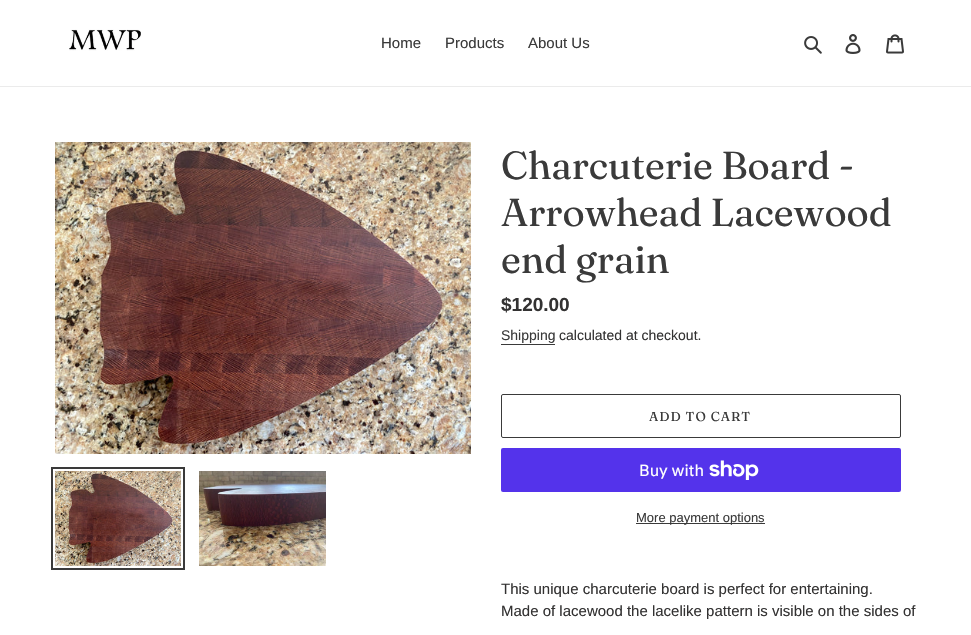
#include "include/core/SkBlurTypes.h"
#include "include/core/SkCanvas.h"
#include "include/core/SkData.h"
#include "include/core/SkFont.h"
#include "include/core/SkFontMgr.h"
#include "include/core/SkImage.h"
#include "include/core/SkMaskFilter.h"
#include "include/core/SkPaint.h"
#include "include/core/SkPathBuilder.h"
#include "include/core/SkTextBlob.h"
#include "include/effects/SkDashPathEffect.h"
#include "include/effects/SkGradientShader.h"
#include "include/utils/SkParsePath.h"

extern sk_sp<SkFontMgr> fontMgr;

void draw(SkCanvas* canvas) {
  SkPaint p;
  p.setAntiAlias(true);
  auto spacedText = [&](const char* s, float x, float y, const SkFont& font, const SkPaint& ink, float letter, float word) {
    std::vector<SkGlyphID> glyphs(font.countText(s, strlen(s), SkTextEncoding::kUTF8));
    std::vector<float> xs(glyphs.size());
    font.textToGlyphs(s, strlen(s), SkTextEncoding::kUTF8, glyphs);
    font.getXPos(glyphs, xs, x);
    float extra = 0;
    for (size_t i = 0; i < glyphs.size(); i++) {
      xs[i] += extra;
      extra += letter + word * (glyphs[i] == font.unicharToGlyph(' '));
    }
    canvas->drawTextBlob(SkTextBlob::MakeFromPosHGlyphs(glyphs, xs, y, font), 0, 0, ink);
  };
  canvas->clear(SK_ColorWHITE);
  p.setColor(SkColorSetRGB(235, 235, 235));
  canvas->drawRect(SkRect::MakeLTRB(0, 86, 971, 87), p);
  canvas->drawImageRect(SkImages::DeferredFromEncodedData(SkData::MakeFromFileName("images/1.png")), SkRect::MakeLTRB(69, 29, 141, 51), SkSamplingOptions());
  canvas->drawImageRect(SkImages::DeferredFromEncodedData(SkData::MakeFromFileName("images/2.png")), SkRect::MakeLTRB(804, 36, 822, 54), SkSamplingOptions());
  canvas->drawImageRect(SkImages::DeferredFromEncodedData(SkData::MakeFromFileName("images/3.png")), SkRect::MakeLTRB(845, 34, 861, 54), SkSamplingOptions());
  canvas->drawImageRect(SkImages::DeferredFromEncodedData(SkData::MakeFromFileName("images/4.png")), SkRect::MakeLTRB(886, 34, 904, 54), SkSamplingOptions());
  canvas->drawImageRect(SkImages::DeferredFromEncodedData(SkData::MakeFromFileName("images/5.png")), SkRect::MakeLTRB(55, 142, 471, 454), SkSamplingOptions());
  p.setStyle(SkPaint::kStroke_Style);
  p.setStrokeWidth(2);
  p.setColor(SkColorSetRGB(58, 58, 58));
  canvas->drawRect(SkRect::MakeLTRB(52, 468, 184, 569), p);
  canvas->drawImageRect(SkImages::DeferredFromEncodedData(SkData::MakeFromFileName("images/6.png")), SkRect::MakeLTRB(55, 471, 181, 566), SkSamplingOptions());
  canvas->drawImageRect(SkImages::DeferredFromEncodedData(SkData::MakeFromFileName("images/7.png")), SkRect::MakeLTRB(199, 471, 326, 566), SkSamplingOptions());
  p.setStyle(SkPaint::kFill_Style);
  canvas->drawRect(SkRect::MakeLTRB(501, 344, 555, 345), p);
  p.setStyle(SkPaint::kStroke_Style);
  p.setStrokeWidth(1);
  canvas->drawRoundRect(SkRect::MakeLTRB(501.5f, 394.5f, 900.5f, 437.5f), 1.5f, 1.5f, p);
  p.setStyle(SkPaint::kFill_Style);
  p.setColor(SkColorSetRGB(84, 51, 235));
  canvas->drawRoundRect(SkRect::MakeLTRB(501, 448, 901, 492), 2, 2, p);
  canvas->drawImageRect(SkImages::DeferredFromEncodedData(SkData::MakeFromFileName("images/8.png")), SkRect::MakeLTRB(709, 460, 759, 480), SkSamplingOptions());
  p.setColor(SkColorSetRGB(58, 58, 58));
  canvas->drawRect(SkRect::MakeLTRB(636, 523, 765, 524), p);
  SkFont font1(fontMgr->matchFamilyStyle("Liberation Sans", SkFontStyle::Normal()), 15);
  font1.setSubpixel(true);
  canvas->drawString("Home", 381, 48, font1, p);
  canvas->drawString("Products", 445, 48, font1, p);
  canvas->drawString("About Us", 528, 48, font1, p);
  SkFont font2(fontMgr->matchFamilyStyle("Fraunces", SkFontStyle::Normal()), 39);
  font2.setSubpixel(true);
  canvas->drawString("Charcuterie Board -", 501, 179, font2, p);
  canvas->drawString("Arrowhead Lacewood", 501, 226, font2, p);
  canvas->drawString("end grain", 501, 273, font2, p);
  SkFont font3(fontMgr->matchFamilyStyle("Liberation Sans", SkFontStyle::Bold()), 19);
  font3.setSubpixel(true);
  p.setColor(SkColorSetRGB(51, 50, 50));
  canvas->drawString("$120.00", 501, 311, font3, p);
  SkFont font4(fontMgr->matchFamilyStyle("Liberation Sans", SkFontStyle::Normal()), 14);
  font4.setSubpixel(true);
  p.setColor(SkColorSetRGB(58, 58, 58));
  canvas->drawString("Shipping", 501, 340, font4, p);
  p.setColor(SkColorSetRGB(51, 50, 50));
  canvas->drawString("calculated at checkout.", 559, 340, font4, p);
  SkFont font5(fontMgr->matchFamilyStyle("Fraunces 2", SkFontStyle::Normal()), 13);
  font5.setSubpixel(true);
  p.setColor(SkColorSetRGB(58, 58, 58));
  spacedText("ADD TO CART", 649, 421, font5, p, 1, 0);
  SkFont font6(fontMgr->matchFamilyStyle("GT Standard", SkFontStyle::Normal()), 16);
  font6.setSubpixel(true);
  p.setColor(SK_ColorWHITE);
  canvas->drawString("Buy with", 639, 476, font6, p);
  SkFont font7(fontMgr->matchFamilyStyle("Liberation Sans", SkFontStyle::Normal()), 13);
  font7.setSubpixel(true);
  p.setColor(SkColorSetRGB(58, 58, 58));
  canvas->drawString("More payment options", 636, 522, font7, p);
  p.setColor(SkColorSetRGB(51, 50, 50));
  canvas->drawString("This unique charcuterie board is perfect for entertaining.", 501, 594, font1, p);
  canvas->drawString("Made of lacewood the lacelike pattern is visible on the sides of", 501, 616, font1, p);
}
